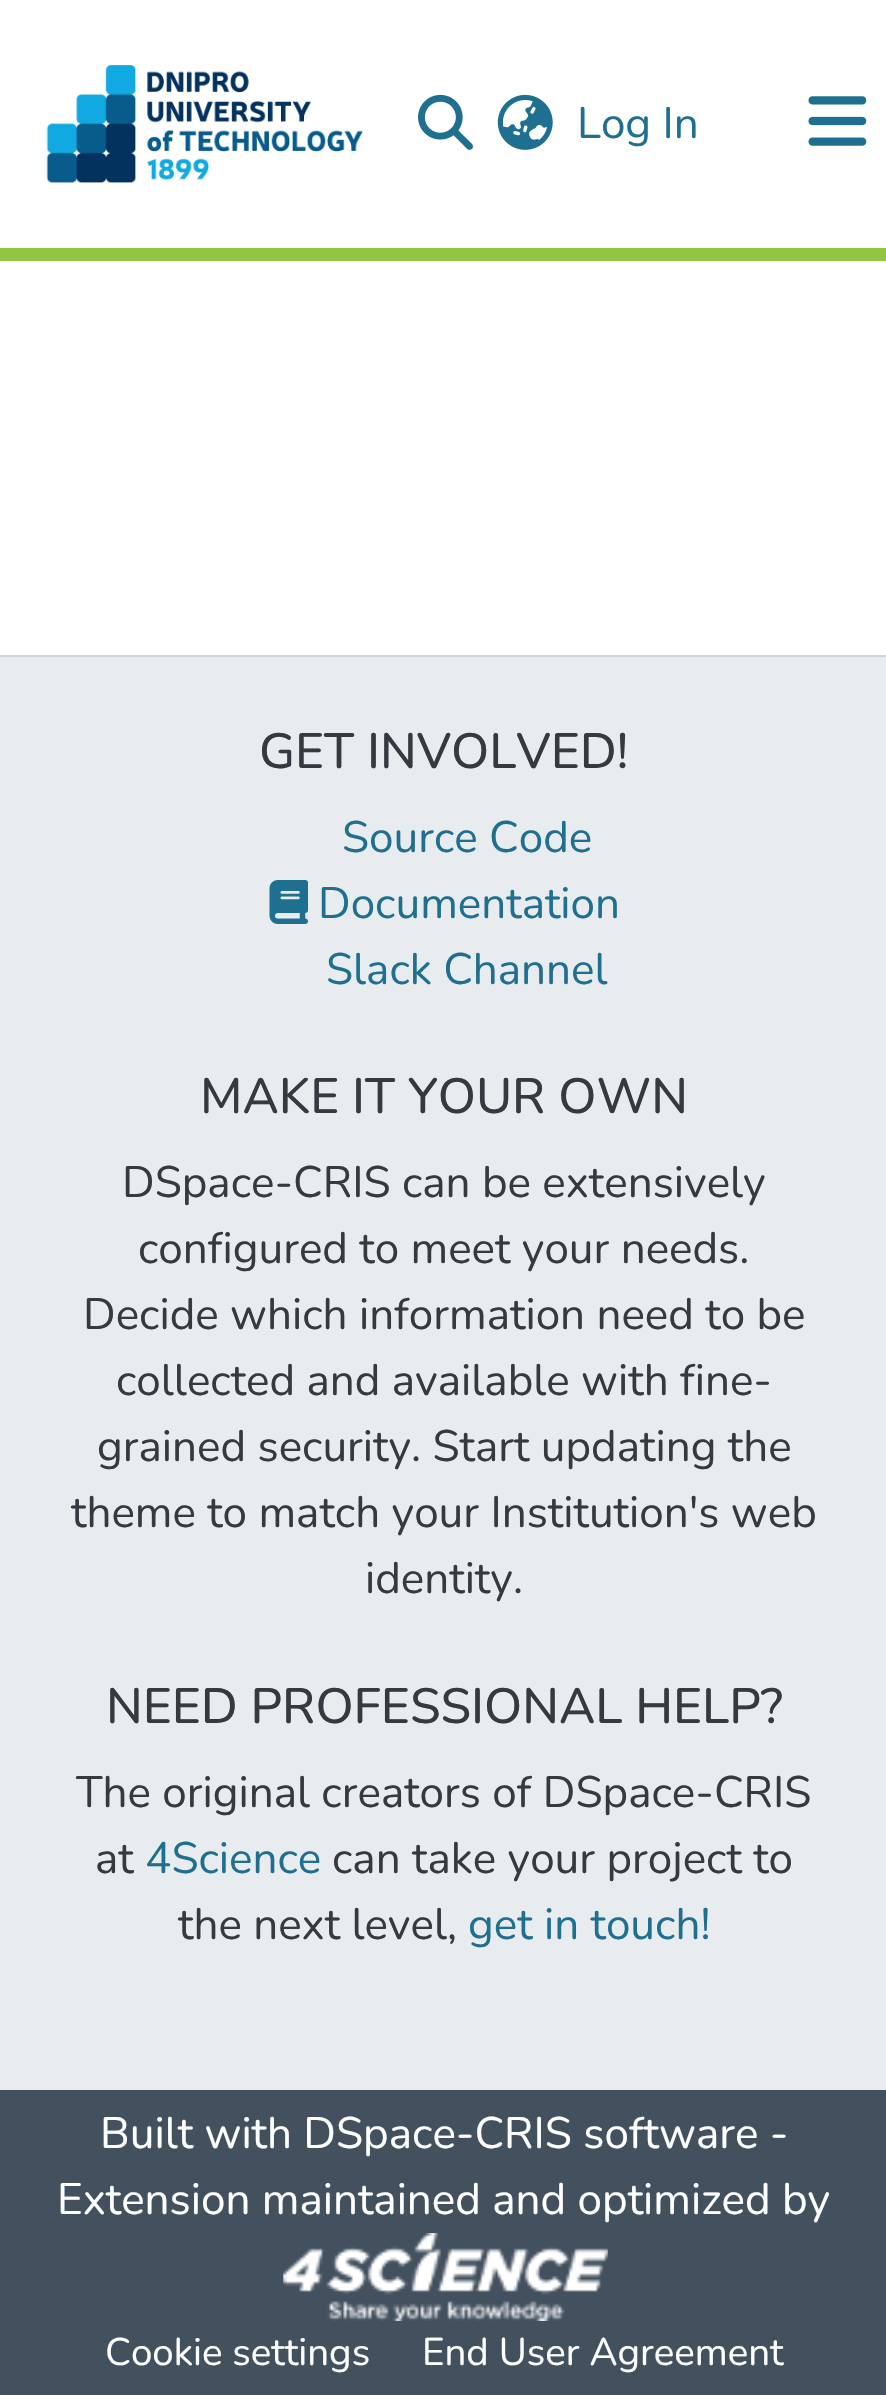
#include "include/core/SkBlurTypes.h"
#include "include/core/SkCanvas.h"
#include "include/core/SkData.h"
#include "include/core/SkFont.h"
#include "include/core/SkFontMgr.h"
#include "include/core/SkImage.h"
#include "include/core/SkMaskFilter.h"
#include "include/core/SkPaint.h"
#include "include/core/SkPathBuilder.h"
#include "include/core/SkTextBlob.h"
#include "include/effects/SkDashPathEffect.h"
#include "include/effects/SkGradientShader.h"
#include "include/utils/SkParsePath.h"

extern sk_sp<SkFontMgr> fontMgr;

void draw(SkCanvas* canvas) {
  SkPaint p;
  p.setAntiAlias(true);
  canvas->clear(SK_ColorWHITE);
  p.setColor(SkColorSetRGB(146, 198, 66));
  canvas->drawRect(SkRect::MakeLTRB(0, 248, 886, 261), p);
  canvas->drawImageRect(SkImages::DeferredFromEncodedData(SkData::MakeFromFileName("images/1.png")), SkRect::MakeLTRB(46, 65, 363, 183), SkSamplingOptions());
  canvas->drawImageRect(SkImages::DeferredFromEncodedData(SkData::MakeFromFileName("images/2.png")), SkRect::MakeLTRB(418, 94, 473, 150), SkSamplingOptions());
  canvas->drawImageRect(SkImages::DeferredFromEncodedData(SkData::MakeFromFileName("images/3.png")), SkRect::MakeLTRB(497, 94, 553, 150), SkSamplingOptions());
  canvas->drawImageRect(SkImages::DeferredFromEncodedData(SkData::MakeFromFileName("images/4.png")), SkRect::MakeLTRB(808, 96, 867, 146), SkSamplingOptions());
  p.setColor(SkColorSetRGB(67, 81, 95));
  canvas->drawRect(SkRect::MakeLTRB(0, 2090, 886, 2395), p);
  p.setColor(SkColorSetRGB(206, 212, 218));
  canvas->drawRect(SkRect::MakeLTRB(0, 655, 886, 657), p);
  p.setColor(SkColorSetRGB(233, 236, 239));
  canvas->drawRect(SkRect::MakeLTRB(0, 657, 886, 2090), p);
  canvas->drawImageRect(SkImages::DeferredFromEncodedData(SkData::MakeFromFileName("images/5.png")), SkRect::MakeLTRB(269, 880, 308, 924), SkSamplingOptions());
  canvas->drawImageRect(SkImages::DeferredFromEncodedData(SkData::MakeFromFileName("images/6.png")), SkRect::MakeLTRB(283, 2233, 608, 2321), SkSamplingOptions());
  p.setColor(SkColorSetRGB(73, 80, 87));
  canvas->drawRect(SkRect::MakeLTRB(393, 2321, 396, 2384), p);
  SkFont font1(fontMgr->matchFamilyStyle("Nunito", SkFontStyle::Normal()), 44);
  font1.setSubpixel(true);
  p.setColor(SkColorSetRGB(30, 111, 144));
  canvas->drawString("Log In", 577, 138, font1, p);
  SkFont font2(fontMgr->matchFamilyStyle("Nunito", SkFontStyle(500, SkFontStyle::kNormal_Width, SkFontStyle::kUpright_Slant)), 49.5f);
  font2.setSubpixel(true);
  p.setColor(SkColorSetRGB(52, 58, 64));
  canvas->drawString("GET INVOLVED!", 259, 768, font2, p);
  p.setColor(SkColorSetRGB(30, 111, 144));
  canvas->drawString("Source Code", 342, 852, font1, p);
  canvas->drawString("Documentation", 318, 918, font1, p);
  canvas->drawString("Slack Channel", 326, 984, font1, p);
  p.setColor(SkColorSetRGB(52, 58, 64));
  canvas->drawString("MAKE IT YOUR OWN", 200, 1113, font2, p);
  canvas->drawString("DSpace-CRIS can be extensively", 122, 1197, font1, p);
  canvas->drawString("configured to meet your needs.", 138, 1263, font1, p);
  canvas->drawString("Decide which information need to be", 83, 1329, font1, p);
  canvas->drawString("collected and available with fine-", 116, 1395, font1, p);
  canvas->drawString("grained security. Start updating the", 97, 1461, font1, p);
  canvas->drawString("theme to match your Institution's web", 71, 1527, font1, p);
  canvas->drawString("identity.", 365, 1593, font1, p);
  canvas->drawString("NEED PROFESSIONAL HELP?", 106, 1723, font2, p);
  canvas->drawString("The original creators of DSpace-CRIS", 76, 1807, font1, p);
  canvas->drawString("at", 95, 1873, font1, p);
  p.setColor(SkColorSetRGB(30, 111, 144));
  canvas->drawString("4Science", 145, 1873, font1, p);
  p.setColor(SkColorSetRGB(52, 58, 64));
  canvas->drawString("can take your project to", 332, 1873, font1, p);
  canvas->drawString("the next level,", 178, 1939, font1, p);
  p.setColor(SkColorSetRGB(30, 111, 144));
  canvas->drawString("get in touch!", 468, 1939, font1, p);
  p.setColor(SK_ColorWHITE);
  canvas->drawString("Built with DSpace-CRIS software -", 100, 2148, font1, p);
  canvas->drawString("Extension maintained and optimized by", 57, 2214, font1, p);
  SkFont font3(fontMgr->matchFamilyStyle("Nunito", SkFontStyle::Normal()), 38.5f);
  font3.setSubpixel(true);
  canvas->drawString("Cookie settings", 105, 2365, font3, p);
  canvas->drawString("End User Agreement", 422, 2365, font3, p);
}
